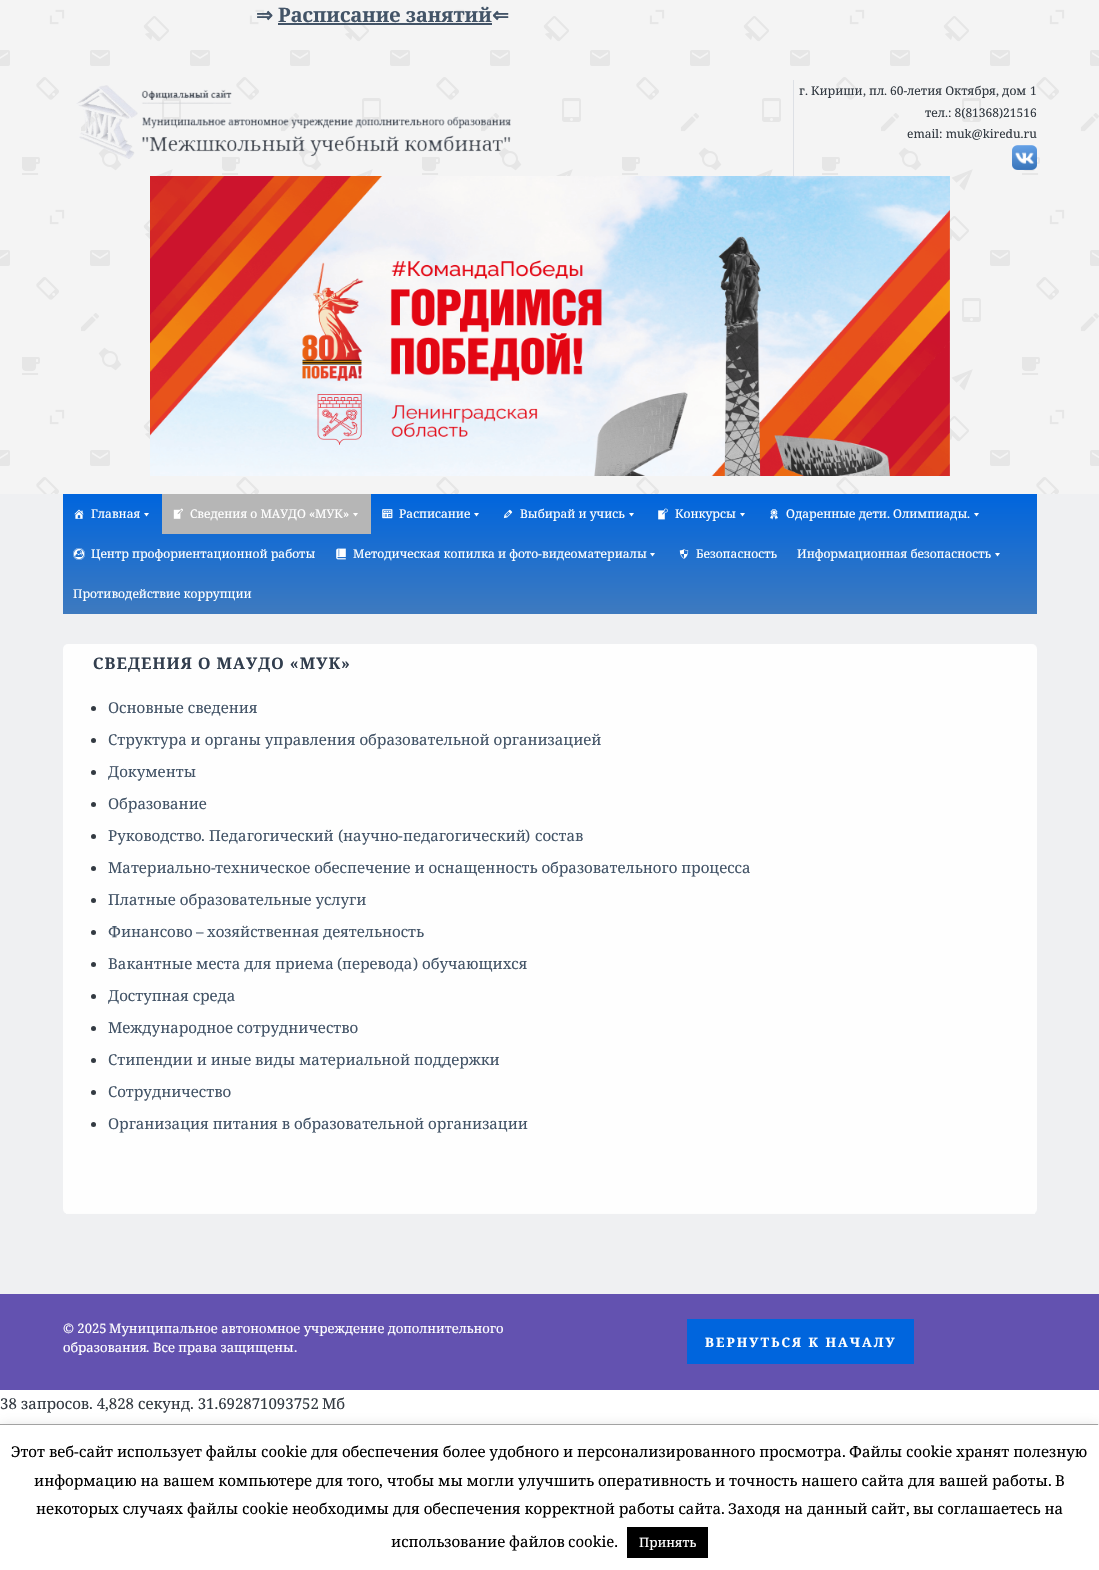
#include "include/core/SkBlurTypes.h"
#include "include/core/SkCanvas.h"
#include "include/core/SkData.h"
#include "include/core/SkFont.h"
#include "include/core/SkFontMgr.h"
#include "include/core/SkImage.h"
#include "include/core/SkMaskFilter.h"
#include "include/core/SkPaint.h"
#include "include/core/SkPathBuilder.h"
#include "include/core/SkTextBlob.h"
#include "include/effects/SkDashPathEffect.h"
#include "include/effects/SkGradientShader.h"
#include "include/utils/SkParsePath.h"

extern sk_sp<SkFontMgr> fontMgr;

void draw(SkCanvas* canvas) {
  SkPaint p;
  p.setAntiAlias(true);
  auto spacedText = [&](const char* s, float x, float y, const SkFont& font, const SkPaint& ink, float letter, float word) {
    std::vector<SkGlyphID> glyphs(font.countText(s, strlen(s), SkTextEncoding::kUTF8));
    std::vector<float> xs(glyphs.size());
    font.textToGlyphs(s, strlen(s), SkTextEncoding::kUTF8, glyphs);
    font.getXPos(glyphs, xs, x);
    float extra = 0;
    for (size_t i = 0; i < glyphs.size(); i++) {
      xs[i] += extra;
      extra += letter + word * (glyphs[i] == font.unicharToGlyph(' '));
    }
    canvas->drawTextBlob(SkTextBlob::MakeFromPosHGlyphs(glyphs, xs, y, font), 0, 0, ink);
  };
  canvas->clear(SK_ColorWHITE);
  canvas->drawImageRect(SkImages::DeferredFromEncodedData(SkData::MakeFromFileName("images/1.png")), SkRect::MakeLTRB(0, 0, 1099, 494), SkSamplingOptions());
  p.setColor(SkColorSetRGB(67, 84, 103));
  canvas->drawRect(SkRect::MakeLTRB(278, 23, 492, 25), p);
  canvas->drawImageRect(SkImages::DeferredFromEncodedData(SkData::MakeFromFileName("images/2.png")), SkRect::MakeLTRB(76, 85, 511, 159), SkSamplingOptions());
  p.setColor(SkColorSetRGB(221, 224, 229));
  canvas->drawRect(SkRect::MakeLTRB(793, 80, 794, 176), p);
  canvas->drawImageRect(SkImages::DeferredFromEncodedData(SkData::MakeFromFileName("images/3.png")), SkRect::MakeLTRB(1012, 145, 1037, 170), SkSamplingOptions());
  canvas->drawImageRect(SkImages::DeferredFromEncodedData(SkData::MakeFromFileName("images/4.png")), SkRect::MakeLTRB(150, 176, 950, 476), SkSamplingOptions());
  p.setColor(SkColorSetRGB(239, 240, 242));
  canvas->drawRect(SkRect::MakeLTRB(0, 494, 1099, 1294), p);
  {
    const SkColor colors[] = {SkColorSetRGB(0, 101, 221), SkColorSetRGB(62, 122, 191)};
    const float stops[] = {0, 1};
    const SkPoint ends[] = {{550, 494}, {550, 614}};
    p.setShader(SkGradientShader::MakeLinear(ends, colors, stops, 2, SkTileMode::kClamp));
    p.setAlpha(255);
  }
  canvas->drawRect(SkRect::MakeLTRB(63, 494, 1037, 614), p);
  canvas->drawImageRect(SkImages::DeferredFromEncodedData(SkData::MakeFromFileName("images/5.png")), SkRect::MakeLTRB(74, 509, 84, 519), SkSamplingOptions());
  p.setShader(nullptr);
  p.setColor(SK_ColorWHITE);
  canvas->drawPath(SkPathBuilder().moveTo(149, 513).lineTo(146.5f, 516.5f).lineTo(144, 513).close().detach(), p);
  p.setColor(SkColorSetRGB(182, 182, 182));
  canvas->drawRect(SkRect::MakeLTRB(162, 494, 371, 534), p);
  canvas->drawImageRect(SkImages::DeferredFromEncodedData(SkData::MakeFromFileName("images/6.png")), SkRect::MakeLTRB(173, 508, 183, 519), SkSamplingOptions());
  p.setColor(SK_ColorWHITE);
  canvas->drawPath(SkPathBuilder().moveTo(358, 513).lineTo(355.5f, 516.5f).lineTo(353, 513).close().detach(), p);
  canvas->drawImageRect(SkImages::DeferredFromEncodedData(SkData::MakeFromFileName("images/7.png")), SkRect::MakeLTRB(382, 509, 393, 519), SkSamplingOptions());
  canvas->drawPath(SkPathBuilder().moveTo(479, 513).lineTo(476.5f, 516.5f).lineTo(474, 513).close().detach(), p);
  canvas->drawImageRect(SkImages::DeferredFromEncodedData(SkData::MakeFromFileName("images/8.png")), SkRect::MakeLTRB(503, 509, 513, 519), SkSamplingOptions());
  canvas->drawPath(SkPathBuilder().moveTo(634, 513).lineTo(631.5f, 516.5f).lineTo(629, 513).close().detach(), p);
  canvas->drawImageRect(SkImages::DeferredFromEncodedData(SkData::MakeFromFileName("images/9.png")), SkRect::MakeLTRB(658, 508, 668, 520), SkSamplingOptions());
  canvas->drawPath(SkPathBuilder().moveTo(745, 513).lineTo(742.5f, 516.5f).lineTo(740, 513).close().detach(), p);
  canvas->drawImageRect(SkImages::DeferredFromEncodedData(SkData::MakeFromFileName("images/10.png")), SkRect::MakeLTRB(770, 509, 778, 520), SkSamplingOptions());
  canvas->drawPath(SkPathBuilder().moveTo(979, 513).lineTo(976.5f, 516.5f).lineTo(974, 513).close().detach(), p);
  canvas->drawImageRect(SkImages::DeferredFromEncodedData(SkData::MakeFromFileName("images/11.png")), SkRect::MakeLTRB(73, 548, 85, 560), SkSamplingOptions());
  canvas->drawImageRect(SkImages::DeferredFromEncodedData(SkData::MakeFromFileName("images/12.png")), SkRect::MakeLTRB(336, 548, 346, 560), SkSamplingOptions());
  canvas->drawPath(SkPathBuilder().moveTo(655, 553).lineTo(652.5f, 556.5f).lineTo(650, 553).close().detach(), p);
  canvas->drawImageRect(SkImages::DeferredFromEncodedData(SkData::MakeFromFileName("images/13.png")), SkRect::MakeLTRB(679, 549, 689, 559), SkSamplingOptions());
  canvas->drawPath(SkPathBuilder().moveTo(1000, 553).lineTo(997.5f, 556.5f).lineTo(995, 553).close().detach(), p);
  p.setColor(SkColorSetRGB(254, 254, 254));
  canvas->drawRoundRect(SkRect::MakeLTRB(63, 644, 1037, 1214), 5, 5, p);
  p.setColor(SkColorSetRGB(253, 253, 253));
  canvas->drawRect(SkRect::MakeLTRB(66, 1213, 1035, 1214), p);
  p.setColor(SkColorSetRGB(51, 58, 66));
  canvas->drawCircle(93.5f, 708.5f, 2.5f, p);
  canvas->drawCircle(93.5f, 740.5f, 2.5f, p);
  canvas->drawCircle(93.5f, 772.5f, 2.5f, p);
  canvas->drawCircle(93.5f, 804.5f, 2.5f, p);
  canvas->drawCircle(93.5f, 836.5f, 2.5f, p);
  canvas->drawCircle(93.5f, 868.5f, 2.5f, p);
  canvas->drawCircle(93.5f, 900.5f, 2.5f, p);
  canvas->drawCircle(93.5f, 932.5f, 2.5f, p);
  canvas->drawCircle(93.5f, 964.5f, 2.5f, p);
  canvas->drawCircle(93.5f, 996.5f, 2.5f, p);
  canvas->drawCircle(93.5f, 1028.5f, 2.5f, p);
  canvas->drawCircle(93.5f, 1060.5f, 2.5f, p);
  canvas->drawCircle(93.5f, 1092.5f, 2.5f, p);
  canvas->drawCircle(93.5f, 1124.5f, 2.5f, p);
  p.setColor(SkColorSetRGB(99, 82, 176));
  canvas->drawRect(SkRect::MakeLTRB(0, 1294, 1099, 1390), p);
  p.setColor(SkColorSetRGB(0, 101, 221));
  canvas->drawRect(SkRect::MakeLTRB(687, 1319, 914, 1364), p);
  p.setColor(SkColorSetRGB(159, 159, 159));
  canvas->drawRect(SkRect::MakeLTRB(0, 1424, 1099, 1425), p);
  p.setColor(SkColorSetRGB(238, 238, 238));
  canvas->drawRect(SkRect::MakeLTRB(1098, 1424, 1099, 1426), p);
  p.setColor(SkColorSetRGB(159, 159, 159));
  canvas->drawRect(SkRect::MakeLTRB(0, 1424, 1, 1426), p);
  p.setColor(SkColorSetARGB(77, 172, 171, 171));
  p.setMaskFilter(SkMaskFilter::MakeBlur(kNormal_SkBlurStyle, 5));
  canvas->drawRect(SkRect::MakeLTRB(0, 1424, 1099, 1569), p);
  p.setMaskFilter(nullptr);
  p.setColor(SK_ColorWHITE);
  canvas->drawRect(SkRect::MakeLTRB(0, 1425, 1099, 1570), p);
  p.setColor(SK_ColorBLACK);
  canvas->drawRect(SkRect::MakeLTRB(627, 1527, 708, 1558), p);
  SkFont font1(fontMgr->matchFamilyStyle("DejaVu Sans", SkFontStyle::Bold()), 20);
  font1.setSubpixel(true);
  p.setColor(SkColorSetRGB(67, 84, 103));
  canvas->drawString("⇒", 256, 22, font1, p);
  SkFont font2(fontMgr->matchFamilyStyle("Noto Serif", SkFontStyle::Bold()), 20);
  font2.setSubpixel(true);
  canvas->drawString("Расписание занятий", 278, 22, font2, p);
  canvas->drawString("⇐", 492, 22, font1, p);
  SkFont font3(fontMgr->matchFamilyStyle("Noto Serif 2", SkFontStyle::Normal()), 12);
  font3.setSubpixel(true);
  p.setColor(SkColorSetRGB(51, 58, 66));
  canvas->drawString("г", 799, 95, font3, p);
  SkFont font4(fontMgr->matchFamilyStyle("Noto Serif", SkFontStyle::Normal()), 12);
  font4.setSubpixel(true);
  canvas->drawString(".", 805, 95, font4, p);
  canvas->drawString("Кириши", 811, 95, font3, p);
  canvas->drawString(",", 863, 95, font4, p);
  canvas->drawString("пл", 869, 95, font3, p);
  canvas->drawString(". 60-", 884, 95, font4, p);
  canvas->drawString("летия Октября", 907, 95, font3, p);
  canvas->drawString(",", 996, 95, font4, p);
  canvas->drawString("дом", 1002, 95, font3, p);
  canvas->drawString("1", 1030, 95, font4, p);
  canvas->drawString("тел", 925, 117, font3, p);
  canvas->drawString(".: 8(81368)21516", 945, 117, font4, p);
  canvas->drawString("email: muk@kiredu.ru", 907, 138, font4, p);
  p.setColor(SK_ColorWHITE);
  canvas->drawString("Главная", 91, 518, font3, p);
  canvas->drawString("Сведения о МАУДО", 190, 518, font3, p);
  canvas->drawString("«", 309, 518, font4, p);
  canvas->drawString("МУК", 315, 518, font3, p);
  canvas->drawString("»", 343, 518, font4, p);
  canvas->drawString("Расписание", 399, 518, font3, p);
  canvas->drawString("Выбирай и учись", 520, 518, font3, p);
  canvas->drawString("Конкурсы", 675, 518, font3, p);
  canvas->drawString("Одаренные дети", 786, 518, font3, p);
  canvas->drawString("Олимпиады", 893, 518, font3, p);
  canvas->drawString(".", 887, 518, font4, p);
  canvas->drawString(".", 967, 518, font4, p);
  canvas->drawString("Центр профориентационной работы", 91, 558, font3, p);
  canvas->drawString("Методическая копилка и фото", 353, 558, font3, p);
  canvas->drawString("-", 538, 558, font4, p);
  canvas->drawString("видеоматериалы", 542, 558, font3, p);
  canvas->drawString("Безопасность", 696, 558, font3, p);
  canvas->drawString("Информационная безопасность", 797, 558, font3, p);
  canvas->drawString("Противодействие коррупции", 73, 598, font3, p);
  SkFont font5(fontMgr->matchFamilyStyle("Noto Serif", SkFontStyle::Bold()), 16);
  font5.setSubpixel(true);
  p.setColor(SkColorSetRGB(50, 62, 78));
  spacedText("СВЕДЕНИЯ О МАУДО «МУК»", 93, 669, font5, p, 1, 0);
  SkFont font6(fontMgr->matchFamilyStyle("Noto Serif 2", SkFontStyle::Normal()), 15);
  font6.setSubpixel(true);
  p.setColor(SkColorSetRGB(67, 84, 103));
  canvas->drawString("Основные сведения", 108, 713, font6, p);
  canvas->drawString("Структура и органы управления образовательной организацией", 108, 745, font6, p);
  canvas->drawString("Документы", 108, 777, font6, p);
  canvas->drawString("Образование", 108, 809, font6, p);
  canvas->drawString("Руководство", 108, 841, font6, p);
  canvas->drawString("Педагогический", 209, 841, font6, p);
  SkFont font7(fontMgr->matchFamilyStyle("Noto Serif", SkFontStyle::Normal()), 15);
  font7.setSubpixel(true);
  canvas->drawString("(", 338, 841, font7, p);
  canvas->drawString("научно", 343, 841, font6, p);
  canvas->drawString("-", 398, 841, font7, p);
  canvas->drawString("педагогический", 403, 841, font6, p);
  canvas->drawString(")", 525, 841, font7, p);
  canvas->drawString("состав", 535, 841, font6, p);
  canvas->drawString(".", 201, 841, font7, p);
  canvas->drawString("Материально", 108, 873, font6, p);
  canvas->drawString("-", 211, 873, font7, p);
  canvas->drawString("техническое обеспечение и оснащенность образовательного процесса", 215, 873, font6, p);
  canvas->drawString("Платные образовательные услуги", 108, 905, font6, p);
  canvas->drawString("Финансово", 108, 937, font6, p);
  canvas->drawString("–", 196, 937, font7, p);
  canvas->drawString("хозяйственная деятельность", 207, 937, font6, p);
  canvas->drawString("Вакантные места для приема", 108, 969, font6, p);
  canvas->drawString("(", 337, 969, font7, p);
  canvas->drawString("перевода", 342, 969, font6, p);
  canvas->drawString(")", 413, 969, font7, p);
  canvas->drawString("обучающихся", 422, 969, font6, p);
  canvas->drawString("Доступная среда", 108, 1001, font6, p);
  canvas->drawString("Международное сотрудничество", 108, 1033, font6, p);
  canvas->drawString("Стипендии и иные виды материальной поддержки", 108, 1065, font6, p);
  canvas->drawString("Сотрудничество", 108, 1097, font6, p);
  canvas->drawString("Организация питания в образовательной организации", 108, 1129, font6, p);
  SkFont font8(fontMgr->matchFamilyStyle("Noto Serif", SkFontStyle::Normal()), 13);
  font8.setSubpixel(true);
  p.setColor(SK_ColorWHITE);
  canvas->drawString("© 2025", 63, 1333, font8, p);
  SkFont font9(fontMgr->matchFamilyStyle("Noto Serif 2", SkFontStyle::Normal()), 13);
  font9.setSubpixel(true);
  canvas->drawString("Муниципальное автономное учреждение дополнительного", 109, 1333, font9, p);
  canvas->drawString("образования", 63, 1352, font9, p);
  canvas->drawString(".", 146, 1352, font8, p);
  canvas->drawString("Все права защищены", 153, 1352, font9, p);
  canvas->drawString(".", 294, 1352, font8, p);
  SkFont font10(fontMgr->matchFamilyStyle("Noto Serif", SkFontStyle::Bold()), 13);
  font10.setSubpixel(true);
  spacedText("ВЕРНУТЬСЯ К НАЧАЛУ", 705, 1347, font10, p, 2, 0);
  p.setColor(SkColorSetRGB(51, 58, 66));
  canvas->drawString("38", 0, 1409, font7, p);
  canvas->drawString("запросов", 21, 1409, font6, p);
  canvas->drawString(". 4,828", 89, 1409, font7, p);
  canvas->drawString("секунд", 138, 1409, font6, p);
  canvas->drawString(". 31.692871093752", 190, 1409, font7, p);
  canvas->drawString("Мб", 322, 1409, font6, p);
  p.setColor(SK_ColorBLACK);
  canvas->drawString("Этот веб", 11, 1457, font6, p);
  canvas->drawString("-", 74, 1457, font7, p);
  canvas->drawString("сайт использует файлы", 79, 1457, font6, p);
  canvas->drawString("cookie", 261, 1457, font7, p);
  canvas->drawString("для обеспечения более удобного и персонализированного просмотра", 311, 1457, font6, p);
  canvas->drawString("Файлы", 849, 1457, font6, p);
  canvas->drawString("cookie", 906, 1457, font7, p);
  canvas->drawString("хранят полезную", 956, 1457, font6, p);
  canvas->drawString(".", 842, 1457, font7, p);
  canvas->drawString("информацию на вашем компьютере для того", 34, 1486, font6, p);
  canvas->drawString("чтобы мы могли улучшить оперативность и точность нашего сайта для вашей работы", 387, 1486, font6, p);
  canvas->drawString("В", 1055, 1486, font6, p);
  canvas->drawString(",", 379, 1486, font7, p);
  canvas->drawString(".", 1048, 1486, font7, p);
  canvas->drawString("некоторых случаях файлы", 36, 1514, font6, p);
  canvas->drawString("cookie", 242, 1514, font7, p);
  canvas->drawString("необходимы для обеспечения корректной работы сайта", 292, 1514, font6, p);
  canvas->drawString(".", 721, 1514, font7, p);
  canvas->drawString("Заходя на данный сайт", 728, 1514, font6, p);
  canvas->drawString(",", 906, 1514, font7, p);
  canvas->drawString("вы соглашаетесь на", 913, 1514, font6, p);
  canvas->drawString("использование файлов", 391, 1547, font6, p);
  canvas->drawString("cookie.", 568, 1547, font7, p);
  p.setColor(SK_ColorWHITE);
  canvas->drawString("Принять", 639, 1547, font9, p);
}
